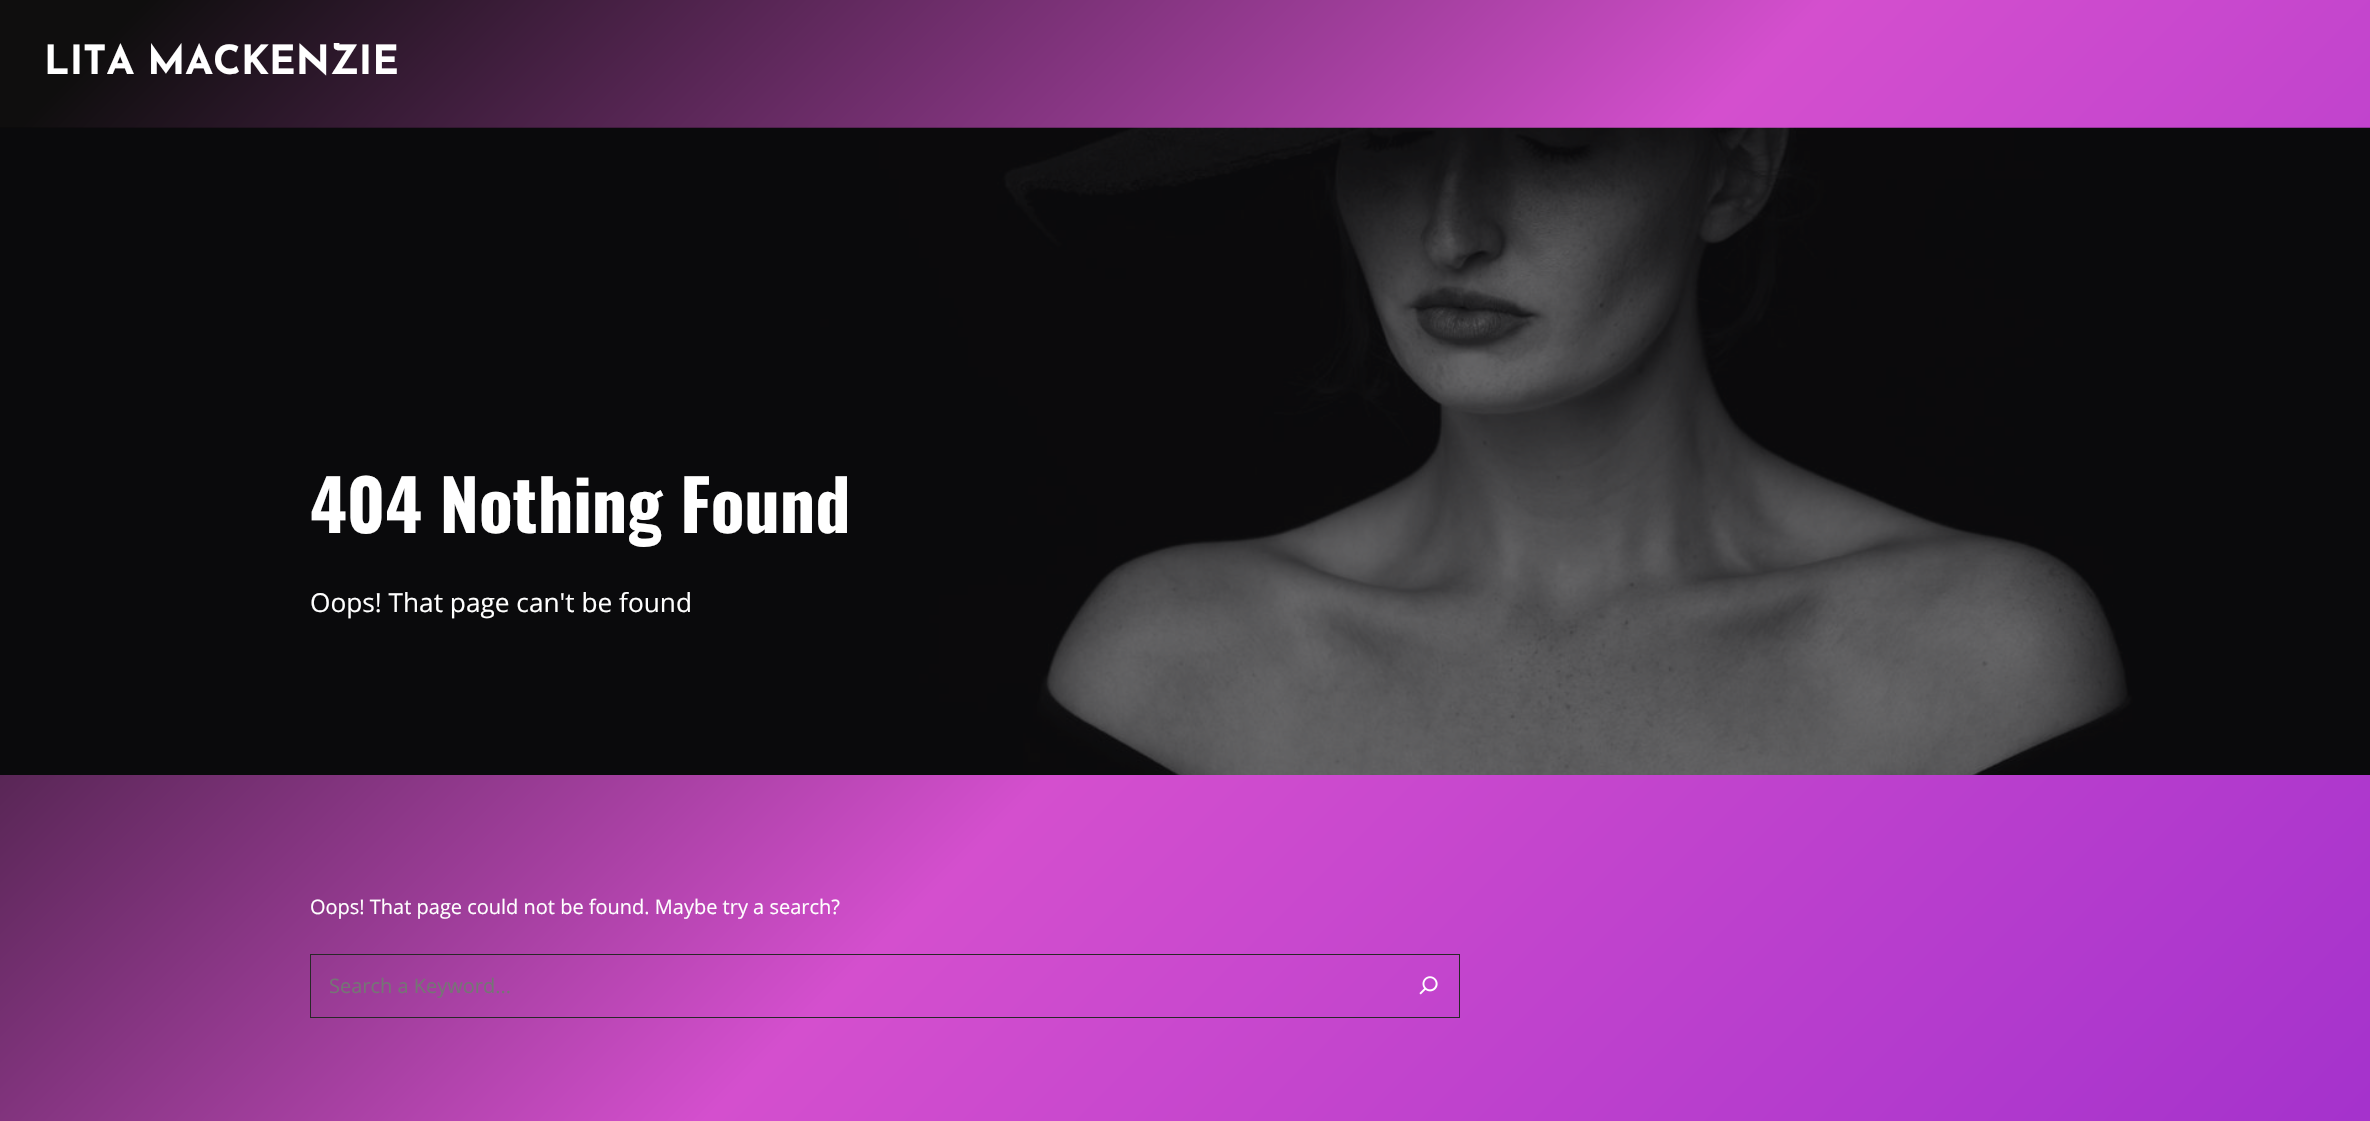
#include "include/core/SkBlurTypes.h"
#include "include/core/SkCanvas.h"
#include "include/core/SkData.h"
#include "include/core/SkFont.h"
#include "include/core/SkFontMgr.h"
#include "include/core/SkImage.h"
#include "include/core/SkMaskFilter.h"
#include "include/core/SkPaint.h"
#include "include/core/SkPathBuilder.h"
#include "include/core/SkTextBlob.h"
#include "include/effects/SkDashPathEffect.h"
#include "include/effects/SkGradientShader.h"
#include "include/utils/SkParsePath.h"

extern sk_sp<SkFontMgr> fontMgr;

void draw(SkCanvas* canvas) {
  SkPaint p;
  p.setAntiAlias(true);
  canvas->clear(SK_ColorWHITE);
  {
    const SkColor colors[] = {SkColorSetRGB(15, 14, 14), SkColorSetRGB(212, 79, 206), SkColorSetRGB(160, 47, 204)};
    const float stops[] = {0.04f, 0.5f, 1};
    const SkPoint ends[] = {{272, -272}, {2098, 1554}};
    p.setShader(SkGradientShader::MakeLinear(ends, colors, stops, 3, SkTileMode::kClamp));
    p.setAlpha(255);
  }
  canvas->drawRect(SkRect::MakeLTRB(0, 0, 2370, 1121), p);
  canvas->drawImageRect(SkImages::DeferredFromEncodedData(SkData::MakeFromFileName("images/1.png")), SkRect::MakeLTRB(0, 127, 2370, 775), SkSamplingOptions());
  p.setStyle(SkPaint::kStroke_Style);
  p.setStrokeWidth(1);
  p.setShader(nullptr);
  p.setColor(SkColorSetRGB(40, 40, 40));
  canvas->drawRect(SkRect::MakeLTRB(310.5f, 954.5f, 1459.5f, 1017.5f), p);
  canvas->drawImageRect(SkImages::DeferredFromEncodedData(SkData::MakeFromFileName("images/2.png")), SkRect::MakeLTRB(1419, 976, 1438, 995), SkSamplingOptions());
  SkFont font1(fontMgr->matchFamilyStyle("Josefin Sans", SkFontStyle::Bold()), 40);
  font1.setSubpixel(true);
  p.setStyle(SkPaint::kFill_Style);
  p.setColor(SK_ColorWHITE);
  canvas->drawString("LITA MACKENZIE", 44, 74, font1, p);
  SkFont font2(fontMgr->matchFamilyStyle("Oswald", SkFontStyle::Bold()), 70);
  font2.setSubpixel(true);
  canvas->drawString("404 Nothing Found", 310, 533, font2, p);
  SkFont font3(fontMgr->matchFamilyStyle("Open Sans", SkFontStyle::Normal()), 26.25f);
  font3.setSubpixel(true);
  canvas->drawString("Oops! That page can't be found", 310, 612, font3, p);
  SkFont font4(fontMgr->matchFamilyStyle("Open Sans", SkFontStyle::Normal()), 20);
  font4.setSubpixel(true);
  canvas->drawString("Oops! That page could not be found. Maybe try a search?", 310, 914, font4, p);
  p.setColor(SkColorSetRGB(117, 117, 117));
  canvas->drawString("Search a Keyword...", 329, 993, font4, p);
}
